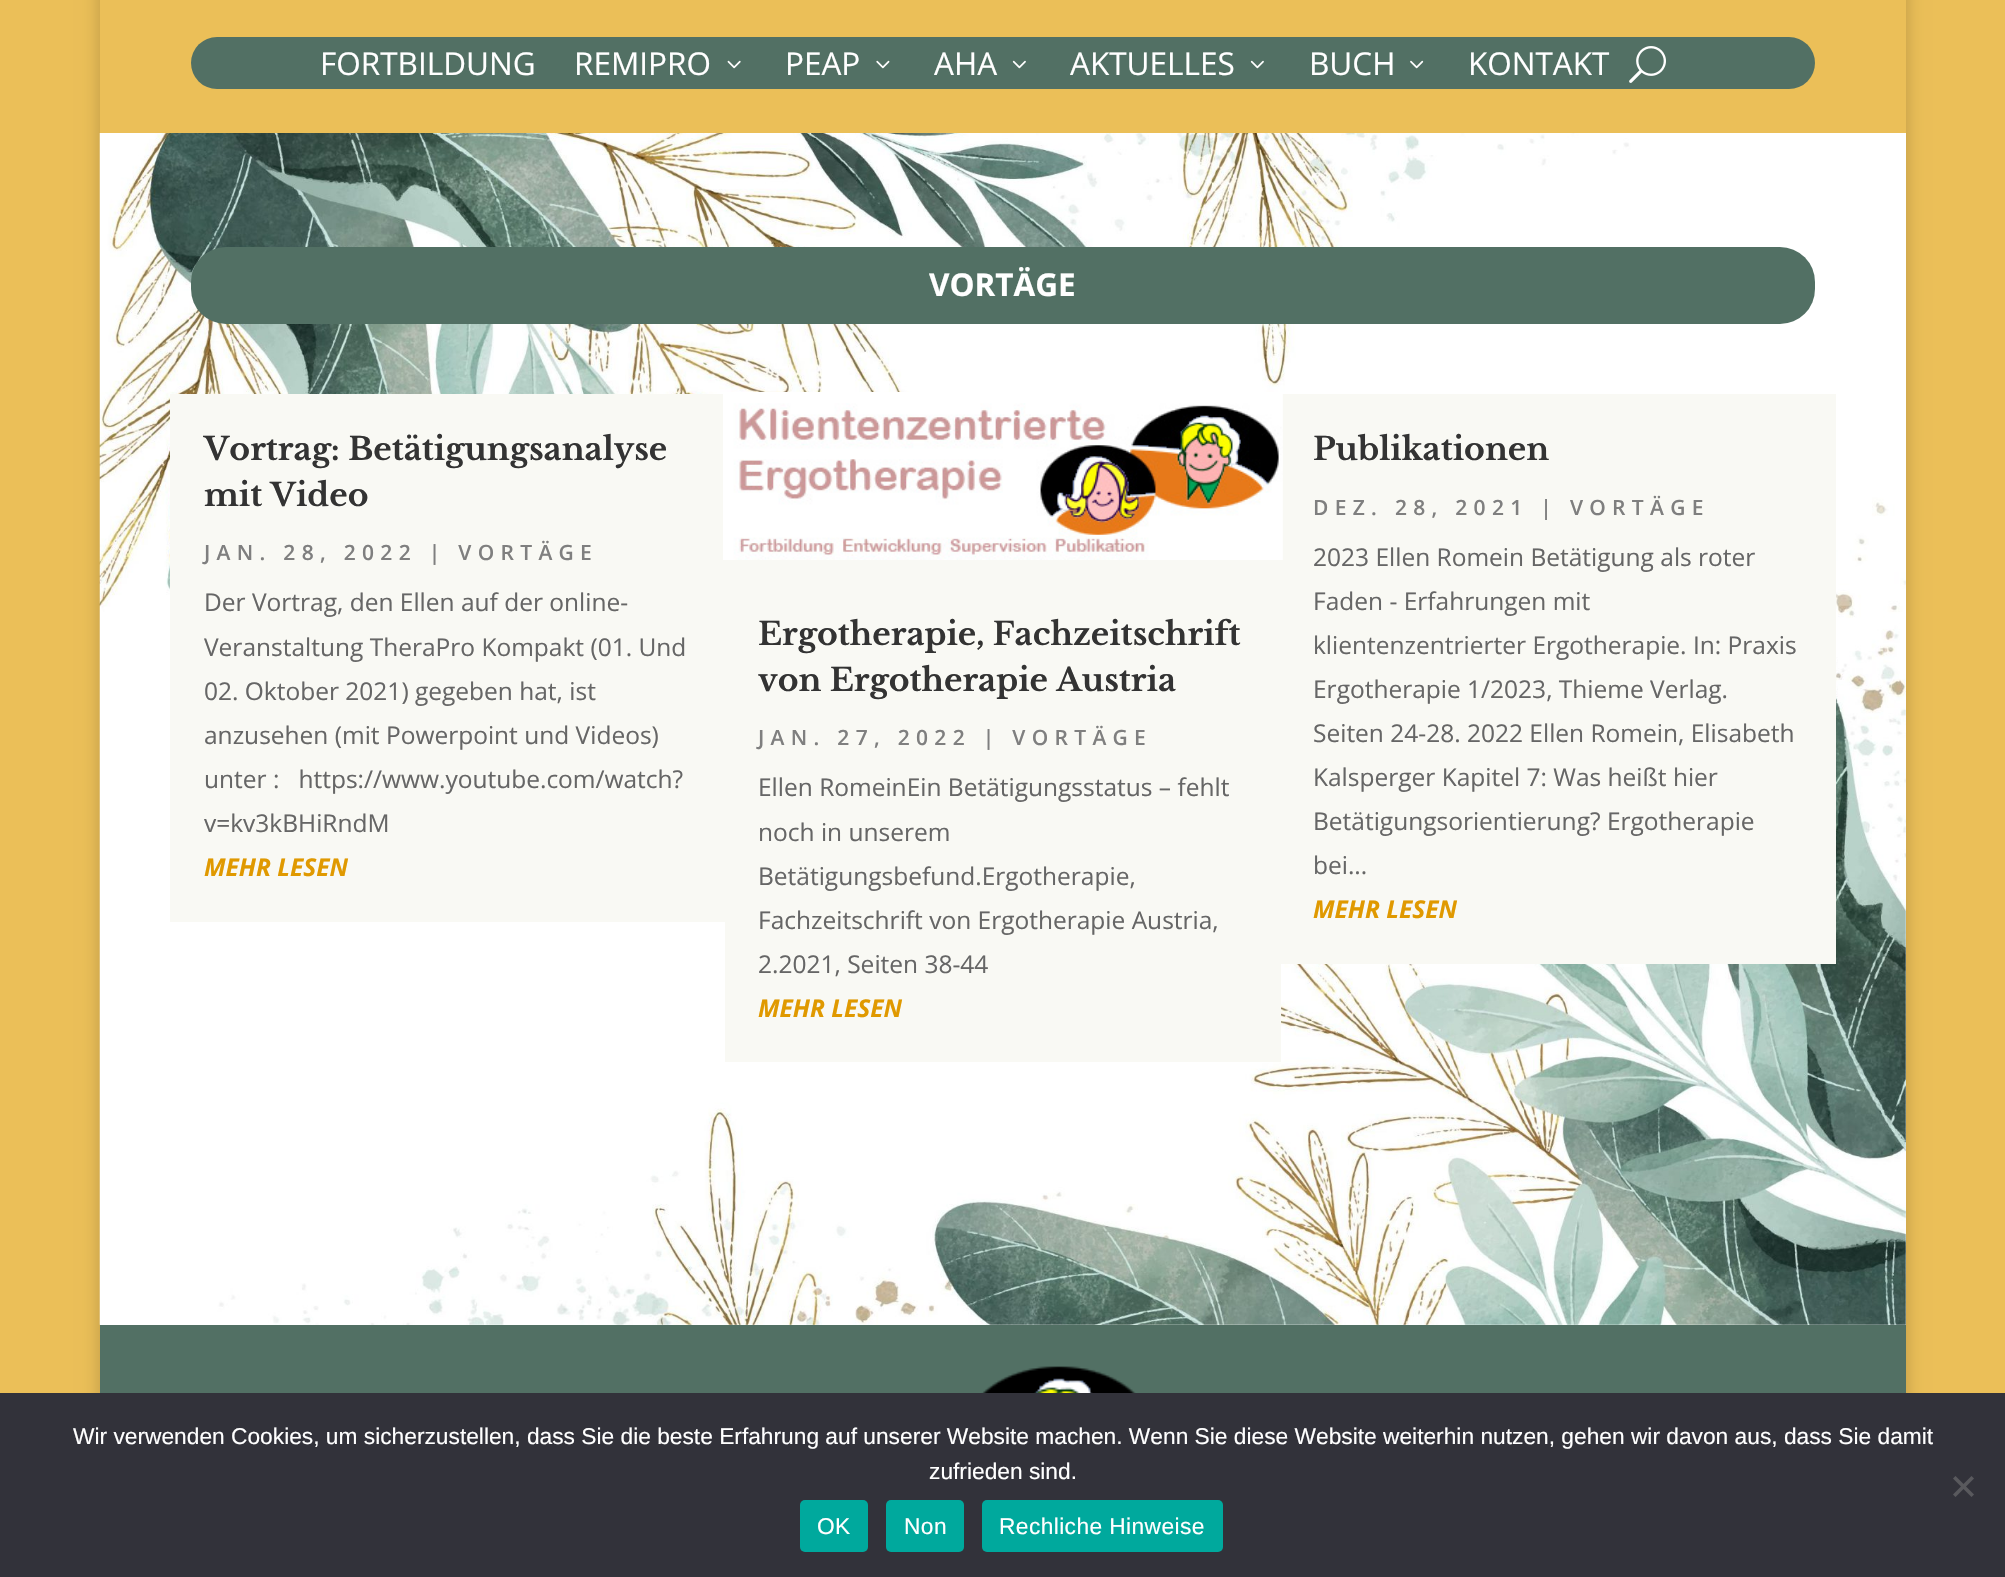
#include "include/core/SkBlurTypes.h"
#include "include/core/SkCanvas.h"
#include "include/core/SkData.h"
#include "include/core/SkFont.h"
#include "include/core/SkFontMgr.h"
#include "include/core/SkImage.h"
#include "include/core/SkMaskFilter.h"
#include "include/core/SkPaint.h"
#include "include/core/SkPathBuilder.h"
#include "include/core/SkTextBlob.h"
#include "include/effects/SkDashPathEffect.h"
#include "include/effects/SkGradientShader.h"
#include "include/utils/SkParsePath.h"

extern sk_sp<SkFontMgr> fontMgr;

void draw(SkCanvas* canvas) {
  SkPaint p;
  p.setAntiAlias(true);
  auto spacedText = [&](const char* s, float x, float y, const SkFont& font, const SkPaint& ink, float letter, float word) {
    std::vector<SkGlyphID> glyphs(font.countText(s, strlen(s), SkTextEncoding::kUTF8));
    std::vector<float> xs(glyphs.size());
    font.textToGlyphs(s, strlen(s), SkTextEncoding::kUTF8, glyphs);
    font.getXPos(glyphs, xs, x);
    float extra = 0;
    for (size_t i = 0; i < glyphs.size(); i++) {
      xs[i] += extra;
      extra += letter + word * (glyphs[i] == font.unicharToGlyph(' '));
    }
    canvas->drawTextBlob(SkTextBlob::MakeFromPosHGlyphs(glyphs, xs, y, font), 0, 0, ink);
  };
  canvas->clear(SkColorSetRGB(235, 191, 88));
  canvas->save();
  canvas->clipPath(SkPathBuilder(SkPathFillType::kEvenOdd).moveTo(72, 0).lineTo(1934, 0).lineTo(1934, 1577).lineTo(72, 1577).close().moveTo(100, -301).lineTo(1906, -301).lineTo(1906, 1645).lineTo(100, 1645).close().detach(), true);
  p.setColor(SkColorSetARGB(51, 0, 0, 0));
  p.setMaskFilter(SkMaskFilter::MakeBlur(kNormal_SkBlurStyle, 9));
  canvas->drawRect(SkRect::MakeLTRB(100, -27, 1906, 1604), p);
  p.setMaskFilter(nullptr);
  canvas->restore();
  p.setColor(SkColorSetRGB(82, 112, 100));
  canvas->drawRoundRect(SkRect::MakeLTRB(191, 37, 1815, 89), 26, 26, p);
  canvas->drawImageRect(SkImages::DeferredFromEncodedData(SkData::MakeFromFileName("images/1.png")), SkRect::MakeLTRB(727, 60, 741, 69), SkSamplingOptions());
  canvas->drawImageRect(SkImages::DeferredFromEncodedData(SkData::MakeFromFileName("images/2.png")), SkRect::MakeLTRB(876, 60, 890, 69), SkSamplingOptions());
  canvas->drawImageRect(SkImages::DeferredFromEncodedData(SkData::MakeFromFileName("images/3.png")), SkRect::MakeLTRB(1012, 60, 1026, 69), SkSamplingOptions());
  canvas->drawImageRect(SkImages::DeferredFromEncodedData(SkData::MakeFromFileName("images/3.png")), SkRect::MakeLTRB(1250, 60, 1264, 69), SkSamplingOptions());
  canvas->drawImageRect(SkImages::DeferredFromEncodedData(SkData::MakeFromFileName("images/4.png")), SkRect::MakeLTRB(1410, 60, 1424, 69), SkSamplingOptions());
  canvas->drawImageRect(SkImages::DeferredFromEncodedData(SkData::MakeFromFileName("images/5.png")), SkRect::MakeLTRB(1629, 46, 1666, 83), SkSamplingOptions());
  p.setColor(SK_ColorWHITE);
  canvas->drawRect(SkRect::MakeLTRB(100, 133, 1906, 1325), p);
  canvas->drawImageRect(SkImages::DeferredFromEncodedData(SkData::MakeFromFileName("images/6.png")), SkRect::MakeLTRB(99, 133, 1906, 1325), SkSamplingOptions());
  p.setColor(SkColorSetRGB(82, 112, 100));
  canvas->drawRoundRect(SkRect::MakeLTRB(191, 247, 1815, 324), 35, 35, p);
  p.setColor(SkColorSetRGB(249, 249, 244));
  canvas->drawRect(SkRect::MakeLTRB(170, 394, 725, 922), p);
  canvas->drawRect(SkRect::MakeLTRB(725, 560, 1281, 1062), p);
  canvas->drawRect(SkRect::MakeLTRB(1281, 394, 1836, 964), p);
  canvas->drawImageRect(SkImages::DeferredFromEncodedData(SkData::MakeFromFileName("images/7.png")), SkRect::MakeLTRB(723, 392, 1283, 560), SkSamplingOptions());
  p.setColor(SkColorSetRGB(82, 112, 100));
  canvas->drawRect(SkRect::MakeLTRB(100, 1325, 1906, 1393), p);
  canvas->drawImageRect(SkImages::DeferredFromEncodedData(SkData::MakeFromFileName("images/8.png")), SkRect::MakeLTRB(981, 1366, 1136, 1393), SkSamplingOptions());
  p.setColor(SkColorSetRGB(50, 50, 58));
  canvas->drawRect(SkRect::MakeLTRB(0, 1393, 2005, 1577), p);
  p.setColor(SkColorSetRGB(89, 89, 93));
  canvas->drawPath(SkPathBuilder().moveTo(1971.5f, 1476).lineTo(1974, 1478.5f).lineTo(1955.5f, 1497).lineTo(1953, 1494.5f).close().detach(), p);
  canvas->drawPath(SkPathBuilder().moveTo(1953, 1478.5f).lineTo(1955.5f, 1476).lineTo(1974, 1494.5f).lineTo(1971.5f, 1497).close().detach(), p);
  p.setColor(SkColorSetRGB(0, 169, 157));
  canvas->drawRoundRect(SkRect::MakeLTRB(800, 1500, 868, 1552), 5, 5, p);
  canvas->drawRoundRect(SkRect::MakeLTRB(886, 1500, 964, 1552), 5, 5, p);
  canvas->drawRoundRect(SkRect::MakeLTRB(982, 1500, 1223, 1552), 5, 5, p);
  SkFont font1(fontMgr->matchFamilyStyle("Open Sans", SkFontStyle::Normal()), 31.5f);
  font1.setSubpixel(true);
  p.setColor(SK_ColorWHITE);
  canvas->drawString("FORTBILDUNG", 320, 75, font1, p);
  canvas->drawString("REMIPRO", 574, 75, font1, p);
  canvas->drawString("PEAP", 785, 75, font1, p);
  canvas->drawString("AHA", 934, 75, font1, p);
  canvas->drawString("AKTUELLES", 1070, 75, font1, p);
  canvas->drawString("BUCH", 1309, 75, font1, p);
  canvas->drawString("KONTAKT", 1468, 75, font1, p);
  SkFont font2(fontMgr->matchFamilyStyle("Open Sans", SkFontStyle::Bold()), 31.5f);
  font2.setSubpixel(true);
  canvas->drawString("VORTÄGE", 929, 296, font2, p);
  SkFont font3(fontMgr->matchFamilyStyle("Libre Baskerville", SkFontStyle::Bold()), 31.5f);
  font3.setSubpixel(true);
  p.setColor(SkColorSetRGB(51, 51, 51));
  canvas->drawString("Vortrag: Betätigungsanalyse", 204, 460, font3, p);
  canvas->drawString("mit Video", 204, 506, font3, p);
  SkFont font4(fontMgr->matchFamilyStyle("Open Sans", SkFontStyle(600, SkFontStyle::kNormal_Width, SkFontStyle::kUpright_Slant)), 21);
  font4.setSubpixel(true);
  p.setColor(SkColorSetRGB(127, 127, 127));
  spacedText("JAN. 28, 2022 | VORTÄGE", 204, 560, font4, p, 6.3f, 0);
  SkFont font5(fontMgr->matchFamilyStyle("Open Sans", SkFontStyle::Normal()), 24.5f);
  font5.setSubpixel(true);
  p.setColor(SkColorSetRGB(102, 102, 102));
  canvas->drawString("Der Vortrag, den Ellen auf der online-", 204, 611, font5, p);
  canvas->drawString("Veranstaltung TheraPro Kompakt (01. Und", 204, 656, font5, p);
  canvas->drawString("02. Oktober 2021) gegeben hat, ist", 204, 700, font5, p);
  canvas->drawString("anzusehen (mit Powerpoint und Videos)", 204, 744, font5, p);
  canvas->drawString("unter :   https://www.youtube.com/watch?", 204, 788, font5, p);
  canvas->drawString("v=kv3kBHiRndM", 204, 832, font5, p);
  SkFont font6(fontMgr->matchFamilyStyle("Open Sans", SkFontStyle::BoldItalic()), 24.5f);
  font6.setSubpixel(true);
  p.setColor(SkColorSetRGB(224, 153, 0));
  canvas->drawString("MEHR LESEN", 204, 876, font6, p);
  p.setColor(SkColorSetRGB(51, 51, 51));
  canvas->drawString("Ergotherapie, Fachzeitschrift", 758, 645, font3, p);
  canvas->drawString("von Ergotherapie Austria", 758, 691, font3, p);
  p.setColor(SkColorSetRGB(127, 127, 127));
  spacedText("JAN. 27, 2022 | VORTÄGE", 758, 745, font4, p, 6.3f, 0);
  p.setColor(SkColorSetRGB(102, 102, 102));
  canvas->drawString("Ellen RomeinEin Betätigungsstatus – fehlt", 758, 796, font5, p);
  canvas->drawString("noch in unserem", 758, 841, font5, p);
  canvas->drawString("Betätigungsbefund.Ergotherapie,", 758, 885, font5, p);
  canvas->drawString("Fachzeitschrift von Ergotherapie Austria,", 758, 929, font5, p);
  canvas->drawString("2.2021, Seiten 38-44", 758, 973, font5, p);
  p.setColor(SkColorSetRGB(224, 153, 0));
  canvas->drawString("MEHR LESEN", 758, 1017, font6, p);
  p.setColor(SkColorSetRGB(51, 51, 51));
  canvas->drawString("Publikationen", 1313, 460, font3, p);
  p.setColor(SkColorSetRGB(127, 127, 127));
  spacedText("DEZ. 28, 2021 | VORTÄGE", 1313, 515, font4, p, 6.3f, 0);
  p.setColor(SkColorSetRGB(102, 102, 102));
  canvas->drawString("2023 Ellen Romein Betätigung als roter", 1313, 566, font5, p);
  canvas->drawString("Faden - Erfahrungen mit", 1313, 610, font5, p);
  canvas->drawString("klientenzentrierter Ergotherapie. In: Praxis", 1313, 654, font5, p);
  canvas->drawString("Ergotherapie 1/2023, Thieme Verlag.", 1313, 698, font5, p);
  canvas->drawString("Seiten 24-28. 2022 Ellen Romein, Elisabeth", 1313, 742, font5, p);
  canvas->drawString("Kalsperger Kapitel 7: Was heißt hier", 1313, 786, font5, p);
  canvas->drawString("Betätigungsorientierung? Ergotherapie", 1313, 830, font5, p);
  canvas->drawString("bei...", 1313, 874, font5, p);
  p.setColor(SkColorSetRGB(224, 153, 0));
  canvas->drawString("MEHR LESEN", 1313, 918, font6, p);
  SkFont font7(fontMgr->matchFamilyStyle("Liberation Sans", SkFontStyle::Normal()), 22.75f);
  font7.setSubpixel(true);
  p.setColor(SK_ColorWHITE);
  canvas->drawString("Wir verwenden Cookies, um sicherzustellen, dass Sie die beste Erfahrung auf unserer Website machen. Wenn Sie diese Website weiterhin nutzen, gehen wir davon aus, dass Sie damit", 73, 1444, font7, p);
  canvas->drawString("zufrieden sind.", 929, 1479, font7, p);
  spacedText("OK", 817, 1534, font7, p, 0.4f, 0);
  spacedText("Non", 904, 1534, font7, p, 0.4f, 0);
  spacedText("Rechliche Hinweise", 999, 1534, font7, p, 0.4f, 0);
}
